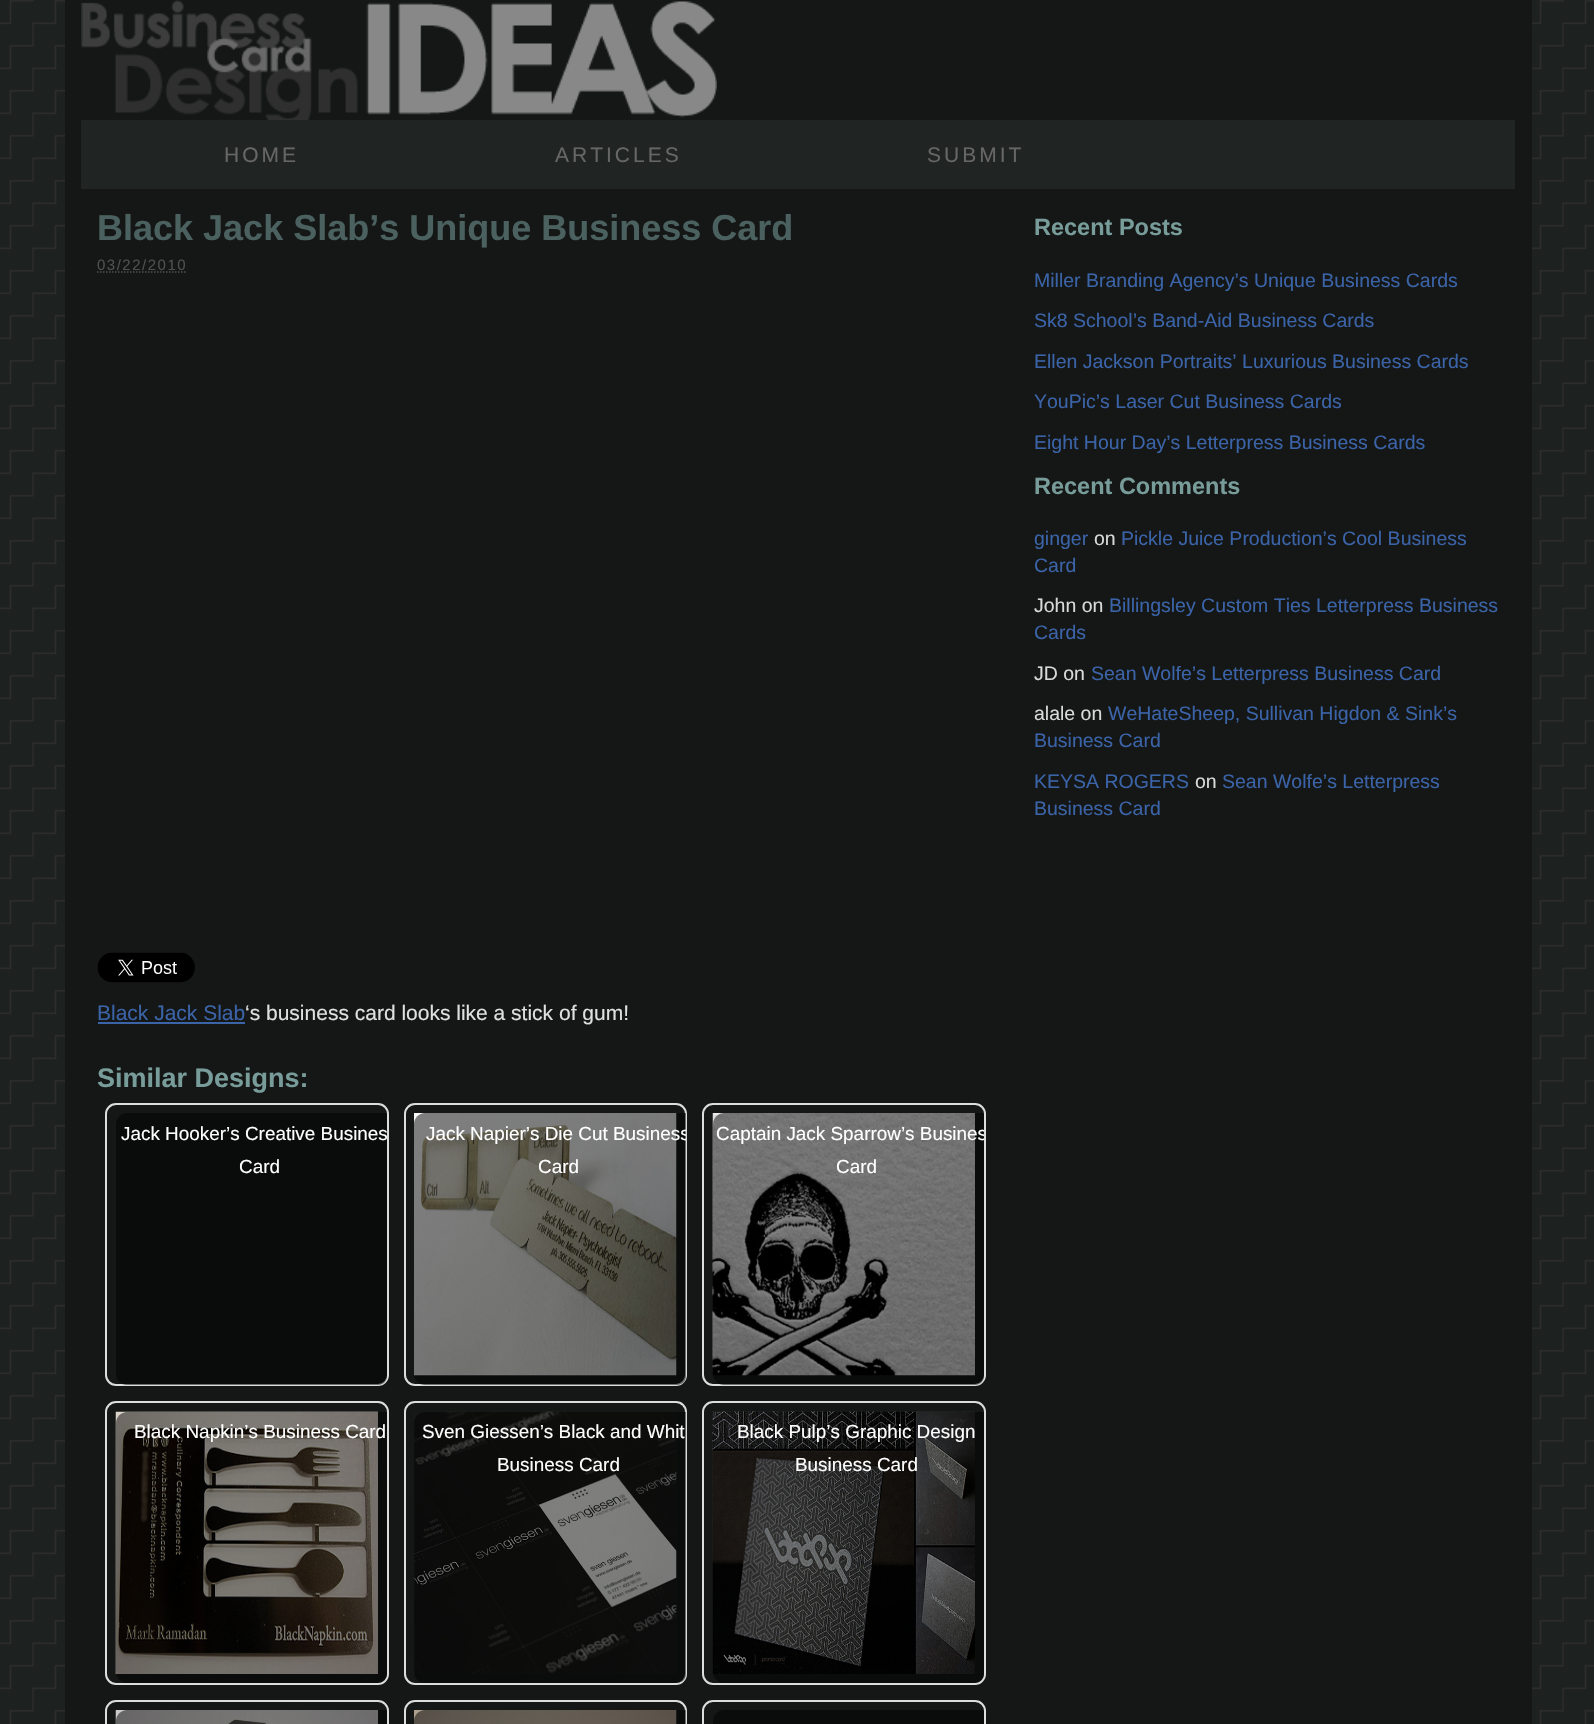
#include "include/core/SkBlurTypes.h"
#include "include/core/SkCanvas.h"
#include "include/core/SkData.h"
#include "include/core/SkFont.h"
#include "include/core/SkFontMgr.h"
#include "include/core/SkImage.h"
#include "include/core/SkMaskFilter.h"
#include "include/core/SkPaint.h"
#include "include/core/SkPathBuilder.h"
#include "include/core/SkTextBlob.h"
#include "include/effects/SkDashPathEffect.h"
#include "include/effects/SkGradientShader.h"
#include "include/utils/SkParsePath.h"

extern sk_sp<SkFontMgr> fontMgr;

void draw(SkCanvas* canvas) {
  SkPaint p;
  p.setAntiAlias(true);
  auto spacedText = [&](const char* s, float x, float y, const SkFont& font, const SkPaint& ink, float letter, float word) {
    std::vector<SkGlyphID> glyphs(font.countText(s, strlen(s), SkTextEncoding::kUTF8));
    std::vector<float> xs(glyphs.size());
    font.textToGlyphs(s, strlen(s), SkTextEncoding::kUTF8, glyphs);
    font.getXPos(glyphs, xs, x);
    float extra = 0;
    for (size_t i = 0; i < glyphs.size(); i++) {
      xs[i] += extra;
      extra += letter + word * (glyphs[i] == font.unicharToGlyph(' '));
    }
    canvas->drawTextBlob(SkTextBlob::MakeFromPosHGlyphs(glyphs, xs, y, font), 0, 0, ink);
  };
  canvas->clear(SkColorSetRGB(29, 33, 32));
  canvas->drawImageRect(SkImages::DeferredFromEncodedData(SkData::MakeFromFileName("images/1.png")), SkRect::MakeLTRB(0, 0, 1594, 1724), SkSamplingOptions());
  p.setColor(SkColorSetRGB(20, 23, 22));
  canvas->drawRect(SkRect::MakeLTRB(65, 0, 1532, 1724), p);
  canvas->drawImageRect(SkImages::DeferredFromEncodedData(SkData::MakeFromFileName("images/2.png")), SkRect::MakeLTRB(81, 0, 717, 120), SkSamplingOptions());
  p.setColor(SkColorSetRGB(32, 36, 35));
  canvas->drawRect(SkRect::MakeLTRB(81, 120, 1515, 189), p);
  p.setStyle(SkPaint::kStroke_Style);
  p.setStrokeWidth(1.5f);
  p.setColor(SkColorSetRGB(79, 79, 79));
  p.setPathEffect(SkDashPathEffect::Make({{1.5f, 1.5f}}, 0));
  canvas->drawPath(SkPathBuilder().moveTo(97, 272).lineTo(187, 272).detach(), p);
  p.setPathEffect(nullptr);
  canvas->drawImageRect(SkImages::DeferredFromEncodedData(SkData::MakeFromFileName("images/3.png")), SkRect::MakeLTRB(97, 952, 195, 983), SkSamplingOptions());
  p.setStyle(SkPaint::kFill_Style);
  p.setColor(SkColorSetRGB(59, 99, 168));
  canvas->drawRect(SkRect::MakeLTRB(98, 1022, 245, 1024), p);
  p.setStyle(SkPaint::kStroke_Style);
  p.setStrokeWidth(2);
  p.setColor(SkColorSetRGB(221, 221, 221));
  canvas->drawRoundRect(SkRect::MakeLTRB(106, 1104, 388, 1385), 10, 10, p);
  p.setStyle(SkPaint::kFill_Style);
  p.setColor(SkColorSetARGB(128, 0, 0, 0));
  canvas->drawPath(SkPathBuilder().moveTo(127, 1113).lineTo(387, 1113).lineTo(387, 1376).cubicTo(387, 1381, 383, 1385, 378, 1385).lineTo(127, 1385).cubicTo(121, 1385, 116, 1380, 116, 1374).lineTo(116, 1124).cubicTo(116, 1118, 121, 1113, 127, 1113).close().detach(), p);
  p.setStyle(SkPaint::kStroke_Style);
  p.setColor(SkColorSetRGB(221, 221, 221));
  canvas->drawRoundRect(SkRect::MakeLTRB(405, 1104, 686, 1385), 10, 10, p);
  canvas->drawImageRect(SkImages::DeferredFromEncodedData(SkData::MakeFromFileName("images/4.png")), SkRect::MakeLTRB(414, 1113, 677, 1376), SkSamplingOptions());
  p.setStyle(SkPaint::kFill_Style);
  p.setColor(SkColorSetARGB(128, 0, 0, 0));
  canvas->drawPath(SkPathBuilder().moveTo(425, 1113).lineTo(686, 1113).lineTo(686, 1376).cubicTo(686, 1381, 682, 1385, 677, 1385).lineTo(425, 1385).cubicTo(419, 1385, 414, 1380, 414, 1374).lineTo(414, 1124).cubicTo(414, 1118, 419, 1113, 425, 1113).close().detach(), p);
  p.setStyle(SkPaint::kStroke_Style);
  p.setColor(SkColorSetRGB(221, 221, 221));
  canvas->drawRoundRect(SkRect::MakeLTRB(703, 1104, 985, 1385), 10, 10, p);
  canvas->drawImageRect(SkImages::DeferredFromEncodedData(SkData::MakeFromFileName("images/5.png")), SkRect::MakeLTRB(712, 1113, 975, 1376), SkSamplingOptions());
  p.setStyle(SkPaint::kFill_Style);
  p.setColor(SkColorSetARGB(128, 0, 0, 0));
  canvas->drawPath(SkPathBuilder().moveTo(724, 1113).lineTo(984, 1113).lineTo(984, 1376).cubicTo(984, 1381, 980, 1385, 975, 1385).lineTo(724, 1385).cubicTo(718, 1385, 713, 1380, 713, 1374).lineTo(713, 1124).cubicTo(713, 1118, 718, 1113, 724, 1113).close().detach(), p);
  p.setStyle(SkPaint::kStroke_Style);
  p.setColor(SkColorSetRGB(221, 221, 221));
  canvas->drawRoundRect(SkRect::MakeLTRB(106, 1402, 388, 1684), 10, 10, p);
  canvas->drawImageRect(SkImages::DeferredFromEncodedData(SkData::MakeFromFileName("images/6.png")), SkRect::MakeLTRB(115, 1411, 378, 1674), SkSamplingOptions());
  p.setStyle(SkPaint::kFill_Style);
  p.setColor(SkColorSetARGB(128, 0, 0, 0));
  canvas->drawPath(SkPathBuilder().moveTo(127, 1412).lineTo(387, 1412).lineTo(387, 1674).cubicTo(387, 1679, 383, 1683, 378, 1683).lineTo(127, 1683).cubicTo(121, 1683, 116, 1678, 116, 1672).lineTo(116, 1423).cubicTo(116, 1417, 121, 1412, 127, 1412).close().detach(), p);
  p.setStyle(SkPaint::kStroke_Style);
  p.setColor(SkColorSetRGB(221, 221, 221));
  canvas->drawRoundRect(SkRect::MakeLTRB(405, 1402, 686, 1684), 10, 10, p);
  canvas->drawImageRect(SkImages::DeferredFromEncodedData(SkData::MakeFromFileName("images/7.png")), SkRect::MakeLTRB(414, 1411, 677, 1674), SkSamplingOptions());
  p.setStyle(SkPaint::kFill_Style);
  p.setColor(SkColorSetARGB(128, 0, 0, 0));
  canvas->drawPath(SkPathBuilder().moveTo(425, 1412).lineTo(686, 1412).lineTo(686, 1674).cubicTo(686, 1679, 682, 1683, 677, 1683).lineTo(425, 1683).cubicTo(419, 1683, 414, 1678, 414, 1672).lineTo(414, 1423).cubicTo(414, 1417, 419, 1412, 425, 1412).close().detach(), p);
  p.setStyle(SkPaint::kStroke_Style);
  p.setColor(SkColorSetRGB(221, 221, 221));
  canvas->drawRoundRect(SkRect::MakeLTRB(703, 1402, 985, 1684), 10, 10, p);
  canvas->drawImageRect(SkImages::DeferredFromEncodedData(SkData::MakeFromFileName("images/8.png")), SkRect::MakeLTRB(712, 1411, 975, 1674), SkSamplingOptions());
  p.setStyle(SkPaint::kFill_Style);
  p.setColor(SkColorSetARGB(128, 0, 0, 0));
  canvas->drawPath(SkPathBuilder().moveTo(724, 1412).lineTo(984, 1412).lineTo(984, 1674).cubicTo(984, 1679, 980, 1683, 975, 1683).lineTo(724, 1683).cubicTo(718, 1683, 713, 1678, 713, 1672).lineTo(713, 1423).cubicTo(713, 1417, 718, 1412, 724, 1412).close().detach(), p);
  p.setStyle(SkPaint::kStroke_Style);
  p.setColor(SkColorSetRGB(221, 221, 221));
  canvas->drawRoundRect(SkRect::MakeLTRB(106, 1701, 388, 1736), 10, 10, p);
  canvas->drawImageRect(SkImages::DeferredFromEncodedData(SkData::MakeFromFileName("images/9.png")), SkRect::MakeLTRB(115, 1710, 378, 1724), SkSamplingOptions());
  p.setStyle(SkPaint::kFill_Style);
  p.setColor(SkColorSetARGB(128, 0, 0, 0));
  canvas->drawPath(SkPathBuilder().moveTo(127, 1710).lineTo(387, 1710).lineTo(387, 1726).cubicTo(387, 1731, 383, 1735, 378, 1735).lineTo(127, 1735).cubicTo(121, 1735, 116, 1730, 116, 1724).lineTo(116, 1721).cubicTo(116, 1715, 121, 1710, 127, 1710).close().detach(), p);
  p.setStyle(SkPaint::kStroke_Style);
  p.setColor(SkColorSetRGB(221, 221, 221));
  canvas->drawRoundRect(SkRect::MakeLTRB(405, 1701, 686, 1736), 10, 10, p);
  canvas->drawImageRect(SkImages::DeferredFromEncodedData(SkData::MakeFromFileName("images/10.png")), SkRect::MakeLTRB(414, 1710, 677, 1724), SkSamplingOptions());
  p.setStyle(SkPaint::kFill_Style);
  p.setColor(SkColorSetARGB(128, 0, 0, 0));
  canvas->drawPath(SkPathBuilder().moveTo(425, 1710).lineTo(686, 1710).lineTo(686, 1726).cubicTo(686, 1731, 682, 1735, 677, 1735).lineTo(425, 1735).cubicTo(419, 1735, 414, 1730, 414, 1724).lineTo(414, 1721).cubicTo(414, 1715, 419, 1710, 425, 1710).close().detach(), p);
  p.setStyle(SkPaint::kStroke_Style);
  p.setColor(SkColorSetRGB(221, 221, 221));
  canvas->drawRoundRect(SkRect::MakeLTRB(703, 1701, 985, 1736), 10, 10, p);
  p.setStyle(SkPaint::kFill_Style);
  p.setColor(SkColorSetARGB(128, 0, 0, 0));
  canvas->drawPath(SkPathBuilder().moveTo(724, 1710).lineTo(984, 1710).lineTo(984, 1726).cubicTo(984, 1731, 980, 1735, 975, 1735).lineTo(724, 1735).cubicTo(718, 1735, 713, 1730, 713, 1724).lineTo(713, 1721).cubicTo(713, 1715, 718, 1710, 724, 1710).close().detach(), p);
  SkFont font1(fontMgr->matchFamilyStyle("Liberation Sans", SkFontStyle::Normal()), 21);
  font1.setSubpixel(true);
  p.setColor(SkColorSetRGB(102, 102, 102));
  spacedText("HOME", 224, 162, font1, p, 3, 0);
  spacedText("ARTICLES", 555, 162, font1, p, 3, 0);
  spacedText("SUBMIT", 927, 162, font1, p, 3, 0);
  SkFont font2(fontMgr->matchFamilyStyle("Liberation Sans", SkFontStyle::Bold()), 36);
  font2.setSubpixel(true);
  p.setColor(SkColorSetRGB(75, 97, 95));
  canvas->drawString("Black Jack Slab’s Unique Business Card", 97, 240, font2, p);
  SkFont font3(fontMgr->matchFamilyStyle("Liberation Sans", SkFontStyle::Normal()), 15);
  font3.setSubpixel(true);
  p.setColor(SkColorSetRGB(79, 79, 79));
  spacedText("03/22/2010", 97, 270, font3, p, 1.5f, 0);
  p.setColor(SkColorSetRGB(59, 99, 168));
  canvas->drawString("Black Jack Slab", 97, 1020, font1, p);
  p.setColor(SkColorSetRGB(224, 224, 224));
  canvas->drawString("‘s business card looks like a stick of gum!", 245, 1020, font1, p);
  SkFont font4(fontMgr->matchFamilyStyle("Liberation Sans", SkFontStyle::Bold()), 27);
  font4.setSubpixel(true);
  p.setColor(SkColorSetRGB(120, 156, 153));
  canvas->drawString("Similar Designs:", 97, 1087, font4, p);
  canvas->save();
  canvas->clipPath(SkPathBuilder().moveTo(116, 1104).lineTo(378, 1104).cubicTo(383, 1104, 387, 1108, 387, 1113).lineTo(387, 1376).cubicTo(387, 1381, 383, 1385, 378, 1385).lineTo(116, 1385).cubicTo(111, 1385, 107, 1381, 107, 1376).lineTo(107, 1113).cubicTo(107, 1108, 111, 1104, 116, 1104).close().detach(), true);
  SkFont font5(fontMgr->matchFamilyStyle("Liberation Sans", SkFontStyle::Normal()), 18.9f);
  font5.setSubpixel(true);
  p.setColor(SK_ColorWHITE);
  canvas->drawString("Jack Hooker’s Creative Busines", 121, 1140, font5, p);
  canvas->restore();
  canvas->drawString("Card", 239, 1173, font5, p);
  canvas->save();
  canvas->clipPath(SkPathBuilder().moveTo(414, 1104).lineTo(677, 1104).cubicTo(682, 1104, 686, 1108, 686, 1113).lineTo(686, 1376).cubicTo(686, 1381, 682, 1385, 677, 1385).lineTo(414, 1385).cubicTo(409, 1385, 405, 1381, 405, 1376).lineTo(405, 1113).cubicTo(405, 1108, 409, 1104, 414, 1104).close().detach(), true);
  canvas->drawString("Jack Napier’s Die Cut Business", 426, 1140, font5, p);
  canvas->restore();
  canvas->drawString("Card", 538, 1173, font5, p);
  canvas->save();
  canvas->clipPath(SkPathBuilder().moveTo(713, 1104).lineTo(975, 1104).cubicTo(980, 1104, 984, 1108, 984, 1113).lineTo(984, 1376).cubicTo(984, 1381, 980, 1385, 975, 1385).lineTo(713, 1385).cubicTo(708, 1385, 704, 1381, 704, 1376).lineTo(704, 1113).cubicTo(704, 1108, 708, 1104, 713, 1104).close().detach(), true);
  canvas->drawString("Captain Jack Sparrow’s Busines", 716, 1140, font5, p);
  canvas->restore();
  canvas->drawString("Card", 836, 1173, font5, p);
  canvas->drawString("Black Napkin’s Business Card", 134, 1438, font5, p);
  canvas->drawString("Sven Giessen’s Black and Whit", 422, 1438, font5, p);
  canvas->drawString("Business Card", 497, 1471, font5, p);
  canvas->drawString("Black Pulp’s Graphic Design", 737, 1438, font5, p);
  canvas->drawString("Business Card", 795, 1471, font5, p);
  SkFont font6(fontMgr->matchFamilyStyle("Liberation Sans", SkFontStyle::Bold()), 23.5f);
  font6.setSubpixel(true);
  p.setColor(SkColorSetRGB(120, 156, 153));
  canvas->drawString("Recent Posts", 1034, 235, font6, p);
  SkFont font7(fontMgr->matchFamilyStyle("Liberation Sans", SkFontStyle::Normal()), 19.5f);
  font7.setSubpixel(true);
  p.setColor(SkColorSetRGB(59, 99, 168));
  canvas->drawString("Miller Branding Agency’s Unique Business Cards", 1034, 287, font7, p);
  canvas->drawString("Sk8 School’s Band-Aid Business Cards", 1034, 327, font7, p);
  canvas->drawString("Ellen Jackson Portraits’ Luxurious Business Cards", 1034, 368, font7, p);
  canvas->drawString("YouPic’s Laser Cut Business Cards", 1034, 408, font7, p);
  canvas->drawString("Eight Hour Day’s Letterpress Business Cards", 1034, 449, font7, p);
  p.setColor(SkColorSetRGB(120, 156, 153));
  canvas->drawString("Recent Comments", 1034, 494, font6, p);
  p.setColor(SkColorSetRGB(59, 99, 168));
  canvas->drawString("ginger", 1034, 545, font7, p);
  p.setColor(SkColorSetRGB(217, 217, 217));
  canvas->drawString("on", 1094, 545, font7, p);
  p.setColor(SkColorSetRGB(59, 99, 168));
  canvas->drawString("Pickle Juice Production’s Cool Business", 1121, 545, font7, p);
  canvas->drawString("Card", 1034, 572, font7, p);
  p.setColor(SkColorSetRGB(217, 217, 217));
  canvas->drawString("John on", 1034, 612, font7, p);
  p.setColor(SkColorSetRGB(59, 99, 168));
  canvas->drawString("Billingsley Custom Ties Letterpress Business", 1109, 612, font7, p);
  canvas->drawString("Cards", 1034, 639, font7, p);
  p.setColor(SkColorSetRGB(217, 217, 217));
  canvas->drawString("JD on", 1034, 680, font7, p);
  p.setColor(SkColorSetRGB(59, 99, 168));
  canvas->drawString("Sean Wolfe’s Letterpress Business Card", 1091, 680, font7, p);
  p.setColor(SkColorSetRGB(217, 217, 217));
  canvas->drawString("alale on", 1034, 720, font7, p);
  p.setColor(SkColorSetRGB(59, 99, 168));
  canvas->drawString("WeHateSheep, Sullivan Higdon & Sink’s", 1108, 720, font7, p);
  canvas->drawString("Business Card", 1034, 747, font7, p);
  canvas->drawString("KEYSA ROGERS", 1034, 788, font7, p);
  p.setColor(SkColorSetRGB(217, 217, 217));
  canvas->drawString("on", 1195, 788, font7, p);
  p.setColor(SkColorSetRGB(59, 99, 168));
  canvas->drawString("Sean Wolfe’s Letterpress", 1222, 788, font7, p);
  canvas->drawString("Business Card", 1034, 815, font7, p);
}
